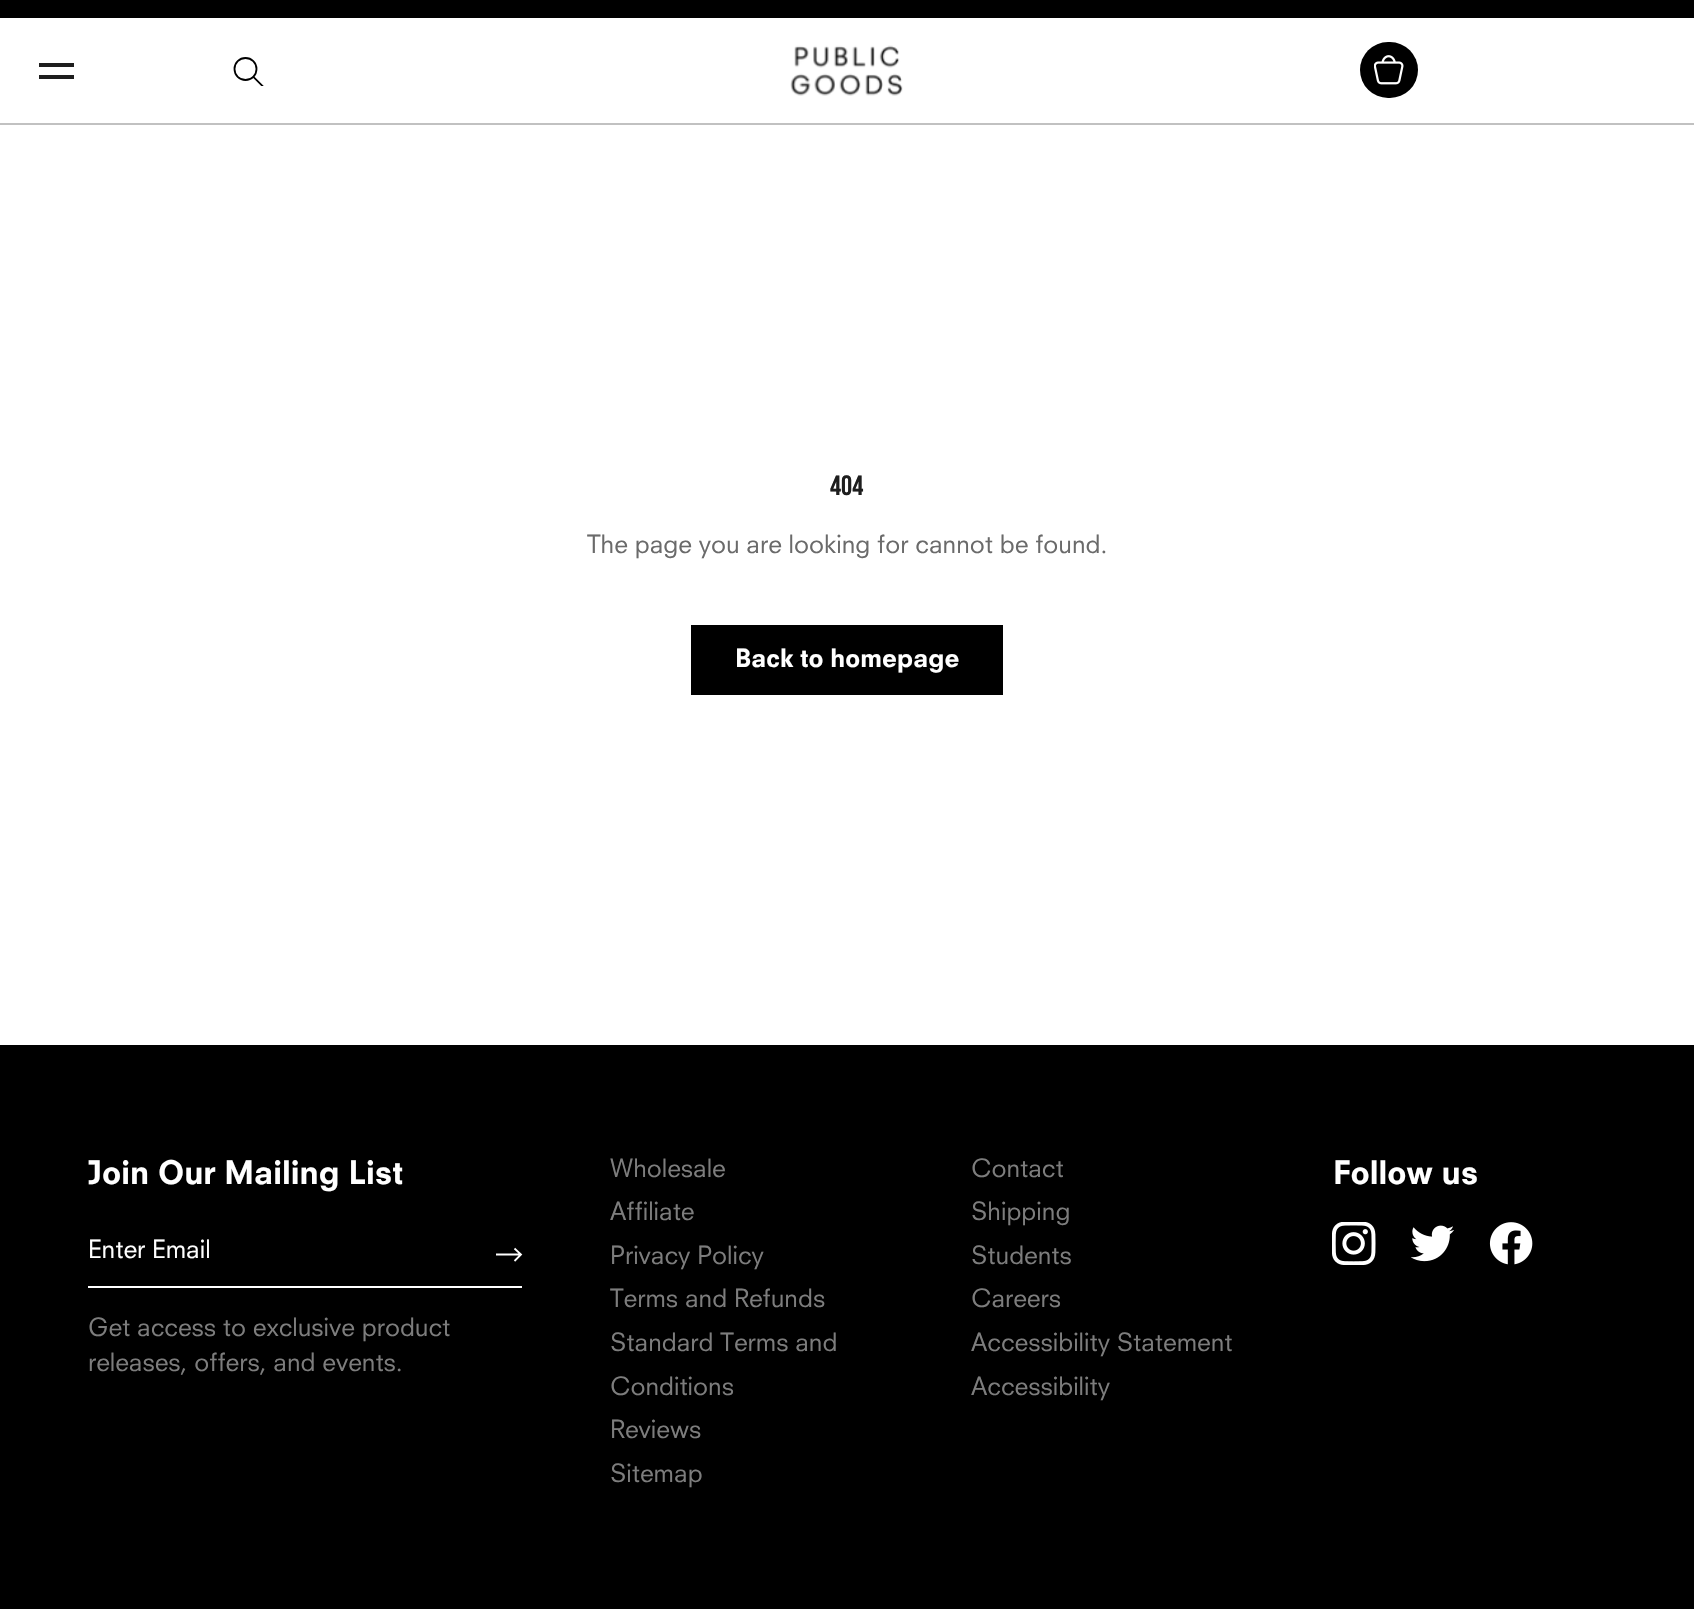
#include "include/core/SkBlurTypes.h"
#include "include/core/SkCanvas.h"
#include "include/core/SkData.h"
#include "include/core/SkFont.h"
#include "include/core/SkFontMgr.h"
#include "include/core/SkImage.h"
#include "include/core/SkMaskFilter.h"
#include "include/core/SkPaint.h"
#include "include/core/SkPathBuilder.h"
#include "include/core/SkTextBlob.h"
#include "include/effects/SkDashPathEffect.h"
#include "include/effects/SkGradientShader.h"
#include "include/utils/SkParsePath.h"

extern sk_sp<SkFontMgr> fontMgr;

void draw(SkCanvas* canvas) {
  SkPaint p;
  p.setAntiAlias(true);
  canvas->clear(SK_ColorWHITE);
  p.setColor(SK_ColorBLACK);
  canvas->drawRect(SkRect::MakeLTRB(0, 0, 1694, 18), p);
  p.setColor(SkColorSetRGB(193, 193, 193));
  canvas->drawRect(SkRect::MakeLTRB(0, 123, 1694, 125), p);
  p.setColor(SkColorSetRGB(30, 30, 30));
  canvas->drawRect(SkRect::MakeLTRB(39, 63, 74, 67), p);
  canvas->drawRect(SkRect::MakeLTRB(39, 75, 74, 79), p);
  canvas->save();
  canvas->clipRect(SkRect::MakeLTRB(233, 56, 264, 86));
  p.setStyle(SkPaint::kStroke_Style);
  p.setStrokeWidth(1.8f);
  p.setStrokeCap(SkPaint::kSquare_Cap);
  p.setColor(SK_ColorBLACK);
  canvas->drawPath(SkPathBuilder().moveTo(262.5f, 86).lineTo(253.5f, 77).detach(), p);
  canvas->restore();
  p.setStrokeCap(SkPaint::kButt_Cap);
  canvas->drawCircle(245.5f, 69, 11, p);
  canvas->drawImageRect(SkImages::DeferredFromEncodedData(SkData::MakeFromFileName("images/1.png")), SkRect::MakeLTRB(790, 45, 903, 96), SkSamplingOptions());
  p.setStyle(SkPaint::kFill_Style);
  canvas->drawRoundRect(SkRect::MakeLTRB(1360, 42, 1418, 98), 28, 28, p);
  canvas->drawImageRect(SkImages::DeferredFromEncodedData(SkData::MakeFromFileName("images/2.png")), SkRect::MakeLTRB(1374, 55, 1404, 85), SkSamplingOptions());
  canvas->drawRect(SkRect::MakeLTRB(691, 625, 1003, 695), p);
  canvas->drawRect(SkRect::MakeLTRB(0, 1045, 1694, 1609), p);
  p.setColor(SK_ColorWHITE);
  canvas->drawRect(SkRect::MakeLTRB(88, 1286, 522, 1288), p);
  p.setStyle(SkPaint::kStroke_Style);
  canvas->drawPath(SkPathBuilder().moveTo(514.5f, 1248.5f).lineTo(521, 1254.5f).lineTo(514.5f, 1261).moveTo(520.5f, 1254.5f).lineTo(496, 1254.5f).detach(), p);
  canvas->drawImageRect(SkImages::DeferredFromEncodedData(SkData::MakeFromFileName("images/3.png")), SkRect::MakeLTRB(1332, 1222, 1376, 1265), SkSamplingOptions());
  canvas->drawImageRect(SkImages::DeferredFromEncodedData(SkData::MakeFromFileName("images/4.png")), SkRect::MakeLTRB(1411, 1225, 1454, 1262), SkSamplingOptions());
  canvas->drawImageRect(SkImages::DeferredFromEncodedData(SkData::MakeFromFileName("images/5.png")), SkRect::MakeLTRB(1489, 1222, 1533, 1265), SkSamplingOptions());
  SkFont font1(fontMgr->matchFamilyStyle("Bebas Neue", SkFontStyle::Normal()), 28);
  font1.setSubpixel(true);
  p.setStyle(SkPaint::kFill_Style);
  p.setColor(SkColorSetRGB(30, 30, 30));
  canvas->drawString("404", 830, 495, font1, p);
  SkFont font2(fontMgr->matchFamilyStyle("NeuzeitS", SkFontStyle::Normal()), 24.5f);
  font2.setSubpixel(true);
  p.setColor(SkColorSetRGB(106, 106, 106));
  canvas->drawString("The page you are looking for cannot be found.", 587, 553, font2, p);
  SkFont font3(fontMgr->matchFamilyStyle("NeuzeitS", SkFontStyle(900, SkFontStyle::kNormal_Width, SkFontStyle::kUpright_Slant)), 24.5f);
  font3.setSubpixel(true);
  p.setColor(SK_ColorWHITE);
  canvas->drawString("Back to homepage", 735, 667, font3, p);
  SkFont font4(fontMgr->matchFamilyStyle("NeuzeitS", SkFontStyle(900, SkFontStyle::kNormal_Width, SkFontStyle::kUpright_Slant)), 31.5f);
  font4.setSubpixel(true);
  canvas->drawString("Join Our Mailing List", 88, 1184, font4, p);
  canvas->drawString("Enter Email", 88, 1258, font2, p);
  p.setColor(SkColorSetRGB(125, 125, 125));
  canvas->drawString("Get access to exclusive product", 88, 1336, font2, p);
  canvas->drawString("releases, offers, and events.", 88, 1371, font2, p);
  canvas->drawString("Wholesale", 610, 1177, font2, p);
  canvas->drawString("Affiliate", 610, 1220, font2, p);
  canvas->drawString("Privacy Policy", 610, 1264, font2, p);
  canvas->drawString("Terms and Refunds", 610, 1307, font2, p);
  canvas->drawString("Standard Terms and", 610, 1351, font2, p);
  canvas->drawString("Conditions", 610, 1395, font2, p);
  canvas->drawString("Reviews", 610, 1438, font2, p);
  canvas->drawString("Sitemap", 610, 1482, font2, p);
  canvas->drawString("Contact", 971, 1177, font2, p);
  canvas->drawString("Shipping", 971, 1220, font2, p);
  canvas->drawString("Students", 971, 1264, font2, p);
  canvas->drawString("Careers", 971, 1307, font2, p);
  canvas->drawString("Accessibility Statement", 971, 1351, font2, p);
  canvas->drawString("Accessibility", 971, 1395, font2, p);
  p.setColor(SK_ColorWHITE);
  canvas->drawString("Follow us", 1333, 1184, font4, p);
}
